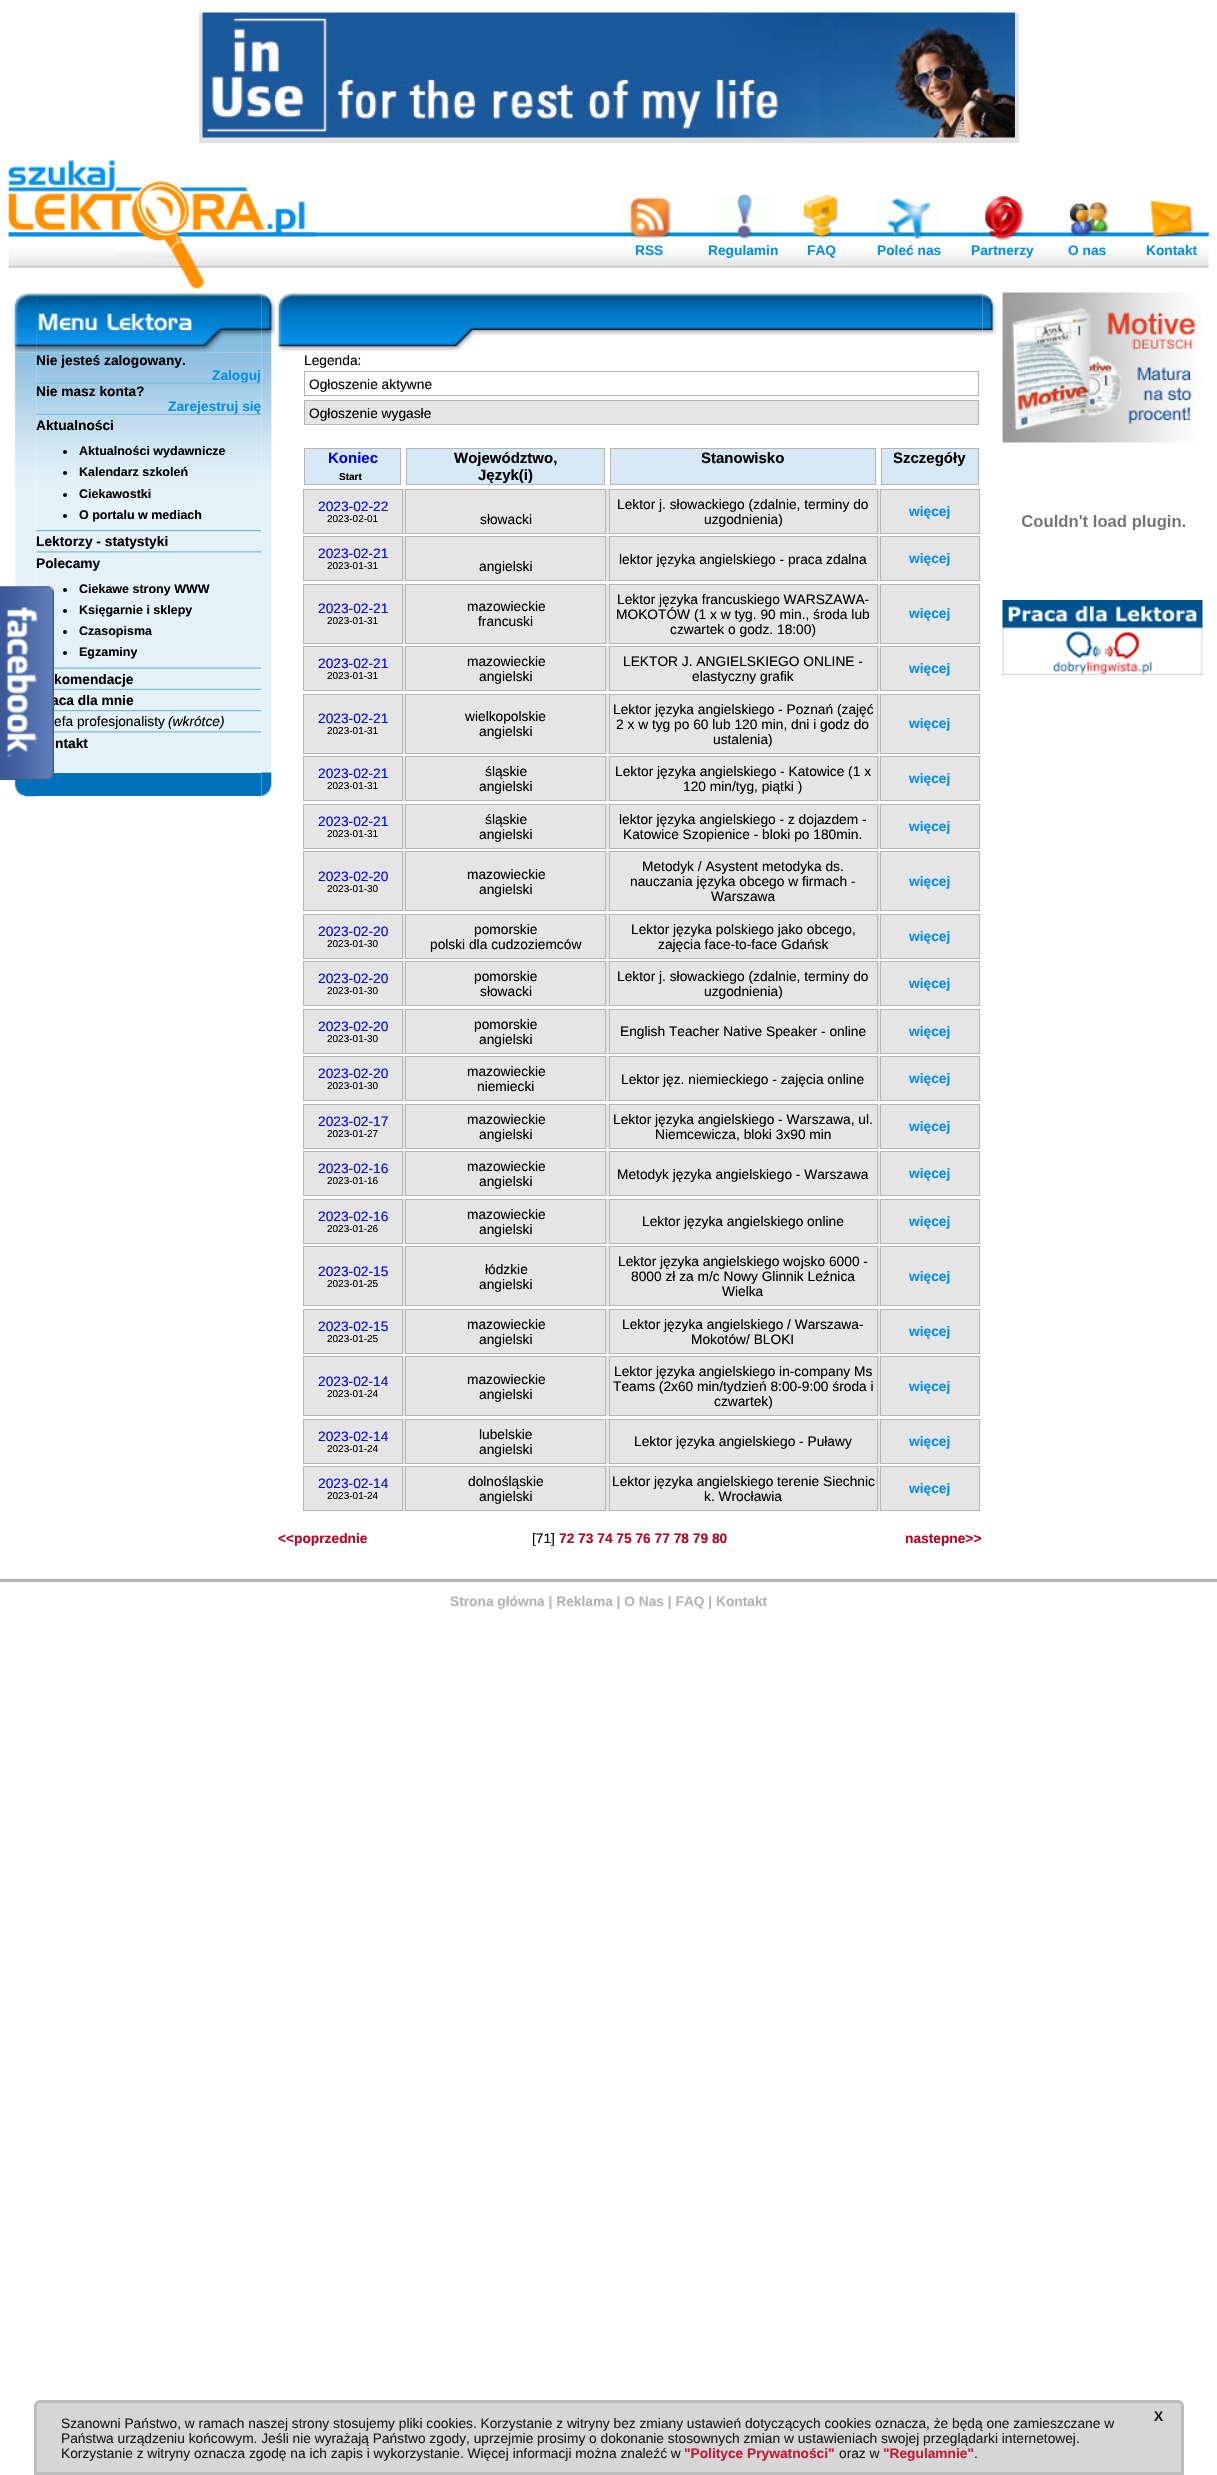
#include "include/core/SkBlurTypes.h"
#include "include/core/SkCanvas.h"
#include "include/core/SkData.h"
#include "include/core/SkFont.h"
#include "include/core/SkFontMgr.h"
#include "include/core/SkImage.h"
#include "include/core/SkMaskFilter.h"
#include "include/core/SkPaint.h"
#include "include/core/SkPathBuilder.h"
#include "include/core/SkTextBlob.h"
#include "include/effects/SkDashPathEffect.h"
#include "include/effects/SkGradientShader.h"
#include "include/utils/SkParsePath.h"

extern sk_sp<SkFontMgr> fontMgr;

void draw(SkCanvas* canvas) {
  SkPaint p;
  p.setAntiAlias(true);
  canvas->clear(SK_ColorWHITE);
  p.setColor(SkColorSetRGB(225, 225, 225));
  canvas->drawRect(SkRect::MakeLTRB(199, 13, 1019, 143), p);
  canvas->drawImageRect(SkImages::DeferredFromEncodedData(SkData::MakeFromFileName("images/1.png")), SkRect::MakeLTRB(202, 12, 1015, 138), SkSamplingOptions());
  canvas->drawImageRect(SkImages::DeferredFromEncodedData(SkData::MakeFromFileName("images/2.png")), SkRect::MakeLTRB(8, 232, 1209, 268), SkSamplingOptions());
  canvas->drawImageRect(SkImages::DeferredFromEncodedData(SkData::MakeFromFileName("images/3.png")), SkRect::MakeLTRB(8, 159, 317, 289), SkSamplingOptions());
  canvas->drawImageRect(SkImages::DeferredFromEncodedData(SkData::MakeFromFileName("images/4.png")), SkRect::MakeLTRB(621, 197, 679, 239), SkSamplingOptions());
  canvas->drawImageRect(SkImages::DeferredFromEncodedData(SkData::MakeFromFileName("images/5.png")), SkRect::MakeLTRB(712, 194, 775, 239), SkSamplingOptions());
  canvas->drawImageRect(SkImages::DeferredFromEncodedData(SkData::MakeFromFileName("images/6.png")), SkRect::MakeLTRB(803, 194, 839, 239), SkSamplingOptions());
  canvas->drawImageRect(SkImages::DeferredFromEncodedData(SkData::MakeFromFileName("images/7.png")), SkRect::MakeLTRB(877, 198, 940, 239), SkSamplingOptions());
  canvas->drawImageRect(SkImages::DeferredFromEncodedData(SkData::MakeFromFileName("images/8.png")), SkRect::MakeLTRB(971, 196, 1034, 240), SkSamplingOptions());
  canvas->drawImageRect(SkImages::DeferredFromEncodedData(SkData::MakeFromFileName("images/9.png")), SkRect::MakeLTRB(1069, 202, 1110, 237), SkSamplingOptions());
  canvas->drawImageRect(SkImages::DeferredFromEncodedData(SkData::MakeFromFileName("images/10.png")), SkRect::MakeLTRB(1150, 200, 1194, 239), SkSamplingOptions());
  canvas->drawImageRect(SkImages::DeferredFromEncodedData(SkData::MakeFromFileName("images/13.png")), SkRect::MakeLTRB(36, 292, 262, 353), SkSamplingOptions());
  canvas->drawImageRect(SkImages::DeferredFromEncodedData(SkData::MakeFromFileName("images/16.png")), SkRect::MakeLTRB(14, 352, 37, 587), SkSamplingOptions());
  canvas->drawImageRect(SkImages::DeferredFromEncodedData(SkData::MakeFromFileName("images/17.png")), SkRect::MakeLTRB(36, 352, 262, 773), SkSamplingOptions());
  canvas->drawImageRect(SkImages::DeferredFromEncodedData(SkData::MakeFromFileName("images/12.png")), SkRect::MakeLTRB(12, 292, 37, 353), SkSamplingOptions());
  canvas->drawImageRect(SkImages::DeferredFromEncodedData(SkData::MakeFromFileName("images/14.png")), SkRect::MakeLTRB(36, 293, 225, 353), SkSamplingOptions());
  canvas->drawImageRect(SkImages::DeferredFromEncodedData(SkData::MakeFromFileName("images/26.png")), SkRect::MakeLTRB(261, 352, 272, 773), SkSamplingOptions());
  canvas->drawImageRect(SkImages::DeferredFromEncodedData(SkData::MakeFromFileName("images/15.png")), SkRect::MakeLTRB(261, 293, 276, 353), SkSamplingOptions());
  p.setColor(SK_ColorBLACK);
  canvas->drawCircle(65, 452, 2, p);
  canvas->drawCircle(65, 473, 2, p);
  canvas->drawCircle(65, 495, 2, p);
  canvas->drawCircle(65, 516, 2, p);
  canvas->drawImageRect(SkImages::DeferredFromEncodedData(SkData::MakeFromFileName("images/20.png")), SkRect::MakeLTRB(36, 530, 262, 532), SkSamplingOptions());
  canvas->drawImageRect(SkImages::DeferredFromEncodedData(SkData::MakeFromFileName("images/21.png")), SkRect::MakeLTRB(36, 551, 262, 553), SkSamplingOptions());
  canvas->drawCircle(65, 590, 2, p);
  canvas->drawCircle(65, 611, 2, p);
  canvas->drawCircle(65, 632, 2, p);
  canvas->drawCircle(65, 653, 2, p);
  canvas->drawImageRect(SkImages::DeferredFromEncodedData(SkData::MakeFromFileName("images/22.png")), SkRect::MakeLTRB(54, 667, 262, 669), SkSamplingOptions());
  canvas->drawImageRect(SkImages::DeferredFromEncodedData(SkData::MakeFromFileName("images/23.png")), SkRect::MakeLTRB(54, 688, 262, 690), SkSamplingOptions());
  canvas->drawImageRect(SkImages::DeferredFromEncodedData(SkData::MakeFromFileName("images/24.png")), SkRect::MakeLTRB(54, 710, 262, 712), SkSamplingOptions());
  canvas->drawImageRect(SkImages::DeferredFromEncodedData(SkData::MakeFromFileName("images/25.png")), SkRect::MakeLTRB(54, 731, 262, 733), SkSamplingOptions());
  p.setColor(SkColorSetRGB(0, 114, 188));
  canvas->drawRect(SkRect::MakeLTRB(36, 773, 261, 796), p);
  canvas->drawImageRect(SkImages::DeferredFromEncodedData(SkData::MakeFromFileName("images/27.png")), SkRect::MakeLTRB(14, 780, 37, 797), SkSamplingOptions());
  canvas->drawImageRect(SkImages::DeferredFromEncodedData(SkData::MakeFromFileName("images/28.png")), SkRect::MakeLTRB(261, 772, 272, 797), SkSamplingOptions());
  canvas->drawImageRect(SkImages::DeferredFromEncodedData(SkData::MakeFromFileName("images/29.png")), SkRect::MakeLTRB(277, 293, 300, 352), SkSamplingOptions());
  canvas->drawImageRect(SkImages::DeferredFromEncodedData(SkData::MakeFromFileName("images/30.png")), SkRect::MakeLTRB(300, 292, 983, 336), SkSamplingOptions());
  canvas->drawImageRect(SkImages::DeferredFromEncodedData(SkData::MakeFromFileName("images/31.png")), SkRect::MakeLTRB(300, 327, 475, 352), SkSamplingOptions());
  canvas->drawImageRect(SkImages::DeferredFromEncodedData(SkData::MakeFromFileName("images/32.png")), SkRect::MakeLTRB(982, 293, 997, 336), SkSamplingOptions());
  p.setStyle(SkPaint::kStroke_Style);
  p.setStrokeWidth(1);
  p.setColor(SkColorSetRGB(180, 180, 180));
  canvas->drawRect(SkRect::MakeLTRB(304.5f, 371.5f, 978.5f, 395.5f), p);
  p.setStyle(SkPaint::kFill_Style);
  p.setColor(SkColorSetRGB(229, 229, 229));
  canvas->drawRect(SkRect::MakeLTRB(304.5f, 400.5f, 978.5f, 424.5f), p);
  p.setStyle(SkPaint::kStroke_Style);
  p.setColor(SkColorSetRGB(180, 180, 180));
  canvas->drawRect(SkRect::MakeLTRB(304.5f, 400.5f, 978.5f, 424.5f), p);
  p.setStyle(SkPaint::kFill_Style);
  p.setColor(SkColorSetRGB(214, 232, 244));
  canvas->drawRect(SkRect::MakeLTRB(304.5f, 448.5f, 400.5f, 484.5f), p);
  p.setStyle(SkPaint::kStroke_Style);
  p.setColor(SkColorSetRGB(180, 180, 180));
  canvas->drawRect(SkRect::MakeLTRB(304.5f, 448.5f, 400.5f, 484.5f), p);
  p.setStyle(SkPaint::kFill_Style);
  p.setColor(SkColorSetRGB(214, 232, 244));
  canvas->drawRect(SkRect::MakeLTRB(406.5f, 448.5f, 604.5f, 484.5f), p);
  p.setStyle(SkPaint::kStroke_Style);
  p.setColor(SkColorSetRGB(180, 180, 180));
  canvas->drawRect(SkRect::MakeLTRB(406.5f, 448.5f, 604.5f, 484.5f), p);
  p.setStyle(SkPaint::kFill_Style);
  p.setColor(SkColorSetRGB(214, 232, 244));
  canvas->drawRect(SkRect::MakeLTRB(610.5f, 448.5f, 875.5f, 484.5f), p);
  p.setStyle(SkPaint::kStroke_Style);
  p.setColor(SkColorSetRGB(180, 180, 180));
  canvas->drawRect(SkRect::MakeLTRB(610.5f, 448.5f, 875.5f, 484.5f), p);
  p.setStyle(SkPaint::kFill_Style);
  p.setColor(SkColorSetRGB(214, 232, 244));
  canvas->drawRect(SkRect::MakeLTRB(881.5f, 448.5f, 978.5f, 484.5f), p);
  p.setStyle(SkPaint::kStroke_Style);
  p.setColor(SkColorSetRGB(180, 180, 180));
  canvas->drawRect(SkRect::MakeLTRB(881.5f, 448.5f, 978.5f, 484.5f), p);
  p.setStyle(SkPaint::kFill_Style);
  p.setColor(SkColorSetRGB(229, 229, 229));
  canvas->drawRect(SkRect::MakeLTRB(304, 489, 979, 534), p);
  p.setStyle(SkPaint::kStroke_Style);
  p.setColor(SkColorSetRGB(180, 180, 180));
  canvas->drawRect(SkRect::MakeLTRB(303.5f, 489.5f, 402.5f, 533.5f), p);
  canvas->drawRect(SkRect::MakeLTRB(405.5f, 489.5f, 605.5f, 533.5f), p);
  canvas->drawRect(SkRect::MakeLTRB(609.5f, 489.5f, 877.5f, 533.5f), p);
  canvas->drawRect(SkRect::MakeLTRB(880.5f, 489.5f, 979.5f, 533.5f), p);
  p.setStyle(SkPaint::kFill_Style);
  p.setColor(SkColorSetRGB(229, 229, 229));
  canvas->drawRect(SkRect::MakeLTRB(304, 536, 979, 581), p);
  p.setStyle(SkPaint::kStroke_Style);
  p.setColor(SkColorSetRGB(180, 180, 180));
  canvas->drawRect(SkRect::MakeLTRB(303.5f, 536.5f, 402.5f, 580.5f), p);
  canvas->drawRect(SkRect::MakeLTRB(405.5f, 536.5f, 605.5f, 580.5f), p);
  canvas->drawRect(SkRect::MakeLTRB(609.5f, 536.5f, 877.5f, 580.5f), p);
  canvas->drawRect(SkRect::MakeLTRB(880.5f, 536.5f, 979.5f, 580.5f), p);
  p.setStyle(SkPaint::kFill_Style);
  p.setColor(SkColorSetRGB(229, 229, 229));
  canvas->drawRect(SkRect::MakeLTRB(304, 584, 979, 644), p);
  p.setStyle(SkPaint::kStroke_Style);
  p.setColor(SkColorSetRGB(180, 180, 180));
  canvas->drawRect(SkRect::MakeLTRB(303.5f, 584.5f, 402.5f, 643.5f), p);
  canvas->drawRect(SkRect::MakeLTRB(405.5f, 584.5f, 605.5f, 643.5f), p);
  canvas->drawRect(SkRect::MakeLTRB(609.5f, 584.5f, 877.5f, 643.5f), p);
  canvas->drawRect(SkRect::MakeLTRB(880.5f, 584.5f, 979.5f, 643.5f), p);
  p.setStyle(SkPaint::kFill_Style);
  p.setColor(SkColorSetRGB(229, 229, 229));
  canvas->drawRect(SkRect::MakeLTRB(304, 646, 979, 691), p);
  p.setStyle(SkPaint::kStroke_Style);
  p.setColor(SkColorSetRGB(180, 180, 180));
  canvas->drawRect(SkRect::MakeLTRB(303.5f, 646.5f, 402.5f, 690.5f), p);
  canvas->drawRect(SkRect::MakeLTRB(405.5f, 646.5f, 605.5f, 690.5f), p);
  canvas->drawRect(SkRect::MakeLTRB(609.5f, 646.5f, 877.5f, 690.5f), p);
  canvas->drawRect(SkRect::MakeLTRB(880.5f, 646.5f, 979.5f, 690.5f), p);
  p.setStyle(SkPaint::kFill_Style);
  p.setColor(SkColorSetRGB(229, 229, 229));
  canvas->drawRect(SkRect::MakeLTRB(304, 694, 979, 754), p);
  p.setStyle(SkPaint::kStroke_Style);
  p.setColor(SkColorSetRGB(180, 180, 180));
  canvas->drawRect(SkRect::MakeLTRB(303.5f, 694.5f, 402.5f, 753.5f), p);
  canvas->drawRect(SkRect::MakeLTRB(405.5f, 694.5f, 605.5f, 753.5f), p);
  canvas->drawRect(SkRect::MakeLTRB(609.5f, 694.5f, 877.5f, 753.5f), p);
  canvas->drawRect(SkRect::MakeLTRB(880.5f, 694.5f, 979.5f, 753.5f), p);
  p.setStyle(SkPaint::kFill_Style);
  p.setColor(SkColorSetRGB(229, 229, 229));
  canvas->drawRect(SkRect::MakeLTRB(304, 756, 979, 801), p);
  p.setStyle(SkPaint::kStroke_Style);
  p.setColor(SkColorSetRGB(180, 180, 180));
  canvas->drawRect(SkRect::MakeLTRB(303.5f, 756.5f, 402.5f, 800.5f), p);
  canvas->drawRect(SkRect::MakeLTRB(405.5f, 756.5f, 605.5f, 800.5f), p);
  canvas->drawRect(SkRect::MakeLTRB(609.5f, 756.5f, 877.5f, 800.5f), p);
  canvas->drawRect(SkRect::MakeLTRB(880.5f, 756.5f, 979.5f, 800.5f), p);
  p.setStyle(SkPaint::kFill_Style);
  p.setColor(SkColorSetRGB(229, 229, 229));
  canvas->drawRect(SkRect::MakeLTRB(304, 804, 979, 849), p);
  p.setStyle(SkPaint::kStroke_Style);
  p.setColor(SkColorSetRGB(180, 180, 180));
  canvas->drawRect(SkRect::MakeLTRB(303.5f, 804.5f, 402.5f, 848.5f), p);
  canvas->drawRect(SkRect::MakeLTRB(405.5f, 804.5f, 605.5f, 848.5f), p);
  canvas->drawRect(SkRect::MakeLTRB(609.5f, 804.5f, 877.5f, 848.5f), p);
  canvas->drawRect(SkRect::MakeLTRB(880.5f, 804.5f, 979.5f, 848.5f), p);
  p.setStyle(SkPaint::kFill_Style);
  p.setColor(SkColorSetRGB(229, 229, 229));
  canvas->drawRect(SkRect::MakeLTRB(304, 851, 979, 911), p);
  p.setStyle(SkPaint::kStroke_Style);
  p.setColor(SkColorSetRGB(180, 180, 180));
  canvas->drawRect(SkRect::MakeLTRB(303.5f, 851.5f, 402.5f, 910.5f), p);
  canvas->drawRect(SkRect::MakeLTRB(405.5f, 851.5f, 605.5f, 910.5f), p);
  canvas->drawRect(SkRect::MakeLTRB(609.5f, 851.5f, 877.5f, 910.5f), p);
  canvas->drawRect(SkRect::MakeLTRB(880.5f, 851.5f, 979.5f, 910.5f), p);
  p.setStyle(SkPaint::kFill_Style);
  p.setColor(SkColorSetRGB(229, 229, 229));
  canvas->drawRect(SkRect::MakeLTRB(304, 914, 979, 959), p);
  p.setStyle(SkPaint::kStroke_Style);
  p.setColor(SkColorSetRGB(180, 180, 180));
  canvas->drawRect(SkRect::MakeLTRB(303.5f, 914.5f, 402.5f, 958.5f), p);
  canvas->drawRect(SkRect::MakeLTRB(405.5f, 914.5f, 605.5f, 958.5f), p);
  canvas->drawRect(SkRect::MakeLTRB(609.5f, 914.5f, 877.5f, 958.5f), p);
  canvas->drawRect(SkRect::MakeLTRB(880.5f, 914.5f, 979.5f, 958.5f), p);
  p.setStyle(SkPaint::kFill_Style);
  p.setColor(SkColorSetRGB(229, 229, 229));
  canvas->drawRect(SkRect::MakeLTRB(304, 961, 979, 1006), p);
  p.setStyle(SkPaint::kStroke_Style);
  p.setColor(SkColorSetRGB(180, 180, 180));
  canvas->drawRect(SkRect::MakeLTRB(303.5f, 961.5f, 402.5f, 1005.5f), p);
  canvas->drawRect(SkRect::MakeLTRB(405.5f, 961.5f, 605.5f, 1005.5f), p);
  canvas->drawRect(SkRect::MakeLTRB(609.5f, 961.5f, 877.5f, 1005.5f), p);
  canvas->drawRect(SkRect::MakeLTRB(880.5f, 961.5f, 979.5f, 1005.5f), p);
  p.setStyle(SkPaint::kFill_Style);
  p.setColor(SkColorSetRGB(229, 229, 229));
  canvas->drawRect(SkRect::MakeLTRB(304, 1009, 979, 1054), p);
  p.setStyle(SkPaint::kStroke_Style);
  p.setColor(SkColorSetRGB(180, 180, 180));
  canvas->drawRect(SkRect::MakeLTRB(303.5f, 1009.5f, 402.5f, 1053.5f), p);
  canvas->drawRect(SkRect::MakeLTRB(405.5f, 1009.5f, 605.5f, 1053.5f), p);
  canvas->drawRect(SkRect::MakeLTRB(609.5f, 1009.5f, 877.5f, 1053.5f), p);
  canvas->drawRect(SkRect::MakeLTRB(880.5f, 1009.5f, 979.5f, 1053.5f), p);
  p.setStyle(SkPaint::kFill_Style);
  p.setColor(SkColorSetRGB(229, 229, 229));
  canvas->drawRect(SkRect::MakeLTRB(304, 1056, 979, 1101), p);
  p.setStyle(SkPaint::kStroke_Style);
  p.setColor(SkColorSetRGB(180, 180, 180));
  canvas->drawRect(SkRect::MakeLTRB(303.5f, 1056.5f, 402.5f, 1100.5f), p);
  canvas->drawRect(SkRect::MakeLTRB(405.5f, 1056.5f, 605.5f, 1100.5f), p);
  canvas->drawRect(SkRect::MakeLTRB(609.5f, 1056.5f, 877.5f, 1100.5f), p);
  canvas->drawRect(SkRect::MakeLTRB(880.5f, 1056.5f, 979.5f, 1100.5f), p);
  p.setStyle(SkPaint::kFill_Style);
  p.setColor(SkColorSetRGB(229, 229, 229));
  canvas->drawRect(SkRect::MakeLTRB(304, 1104, 979, 1149), p);
  p.setStyle(SkPaint::kStroke_Style);
  p.setColor(SkColorSetRGB(180, 180, 180));
  canvas->drawRect(SkRect::MakeLTRB(303.5f, 1104.5f, 402.5f, 1148.5f), p);
  canvas->drawRect(SkRect::MakeLTRB(405.5f, 1104.5f, 605.5f, 1148.5f), p);
  canvas->drawRect(SkRect::MakeLTRB(609.5f, 1104.5f, 877.5f, 1148.5f), p);
  canvas->drawRect(SkRect::MakeLTRB(880.5f, 1104.5f, 979.5f, 1148.5f), p);
  p.setStyle(SkPaint::kFill_Style);
  p.setColor(SkColorSetRGB(229, 229, 229));
  canvas->drawRect(SkRect::MakeLTRB(304, 1151, 979, 1196), p);
  p.setStyle(SkPaint::kStroke_Style);
  p.setColor(SkColorSetRGB(180, 180, 180));
  canvas->drawRect(SkRect::MakeLTRB(303.5f, 1151.5f, 402.5f, 1195.5f), p);
  canvas->drawRect(SkRect::MakeLTRB(405.5f, 1151.5f, 605.5f, 1195.5f), p);
  canvas->drawRect(SkRect::MakeLTRB(609.5f, 1151.5f, 877.5f, 1195.5f), p);
  canvas->drawRect(SkRect::MakeLTRB(880.5f, 1151.5f, 979.5f, 1195.5f), p);
  p.setStyle(SkPaint::kFill_Style);
  p.setColor(SkColorSetRGB(229, 229, 229));
  canvas->drawRect(SkRect::MakeLTRB(304, 1199, 979, 1244), p);
  p.setStyle(SkPaint::kStroke_Style);
  p.setColor(SkColorSetRGB(180, 180, 180));
  canvas->drawRect(SkRect::MakeLTRB(303.5f, 1199.5f, 402.5f, 1243.5f), p);
  canvas->drawRect(SkRect::MakeLTRB(405.5f, 1199.5f, 605.5f, 1243.5f), p);
  canvas->drawRect(SkRect::MakeLTRB(609.5f, 1199.5f, 877.5f, 1243.5f), p);
  canvas->drawRect(SkRect::MakeLTRB(880.5f, 1199.5f, 979.5f, 1243.5f), p);
  p.setStyle(SkPaint::kFill_Style);
  p.setColor(SkColorSetRGB(229, 229, 229));
  canvas->drawRect(SkRect::MakeLTRB(304, 1246, 979, 1306), p);
  p.setStyle(SkPaint::kStroke_Style);
  p.setColor(SkColorSetRGB(180, 180, 180));
  canvas->drawRect(SkRect::MakeLTRB(303.5f, 1246.5f, 402.5f, 1305.5f), p);
  canvas->drawRect(SkRect::MakeLTRB(405.5f, 1246.5f, 605.5f, 1305.5f), p);
  canvas->drawRect(SkRect::MakeLTRB(609.5f, 1246.5f, 877.5f, 1305.5f), p);
  canvas->drawRect(SkRect::MakeLTRB(880.5f, 1246.5f, 979.5f, 1305.5f), p);
  p.setStyle(SkPaint::kFill_Style);
  p.setColor(SkColorSetRGB(229, 229, 229));
  canvas->drawRect(SkRect::MakeLTRB(304, 1309, 979, 1354), p);
  p.setStyle(SkPaint::kStroke_Style);
  p.setColor(SkColorSetRGB(180, 180, 180));
  canvas->drawRect(SkRect::MakeLTRB(303.5f, 1309.5f, 402.5f, 1353.5f), p);
  canvas->drawRect(SkRect::MakeLTRB(405.5f, 1309.5f, 605.5f, 1353.5f), p);
  canvas->drawRect(SkRect::MakeLTRB(609.5f, 1309.5f, 877.5f, 1353.5f), p);
  canvas->drawRect(SkRect::MakeLTRB(880.5f, 1309.5f, 979.5f, 1353.5f), p);
  p.setStyle(SkPaint::kFill_Style);
  p.setColor(SkColorSetRGB(229, 229, 229));
  canvas->drawRect(SkRect::MakeLTRB(304, 1356, 979, 1416), p);
  p.setStyle(SkPaint::kStroke_Style);
  p.setColor(SkColorSetRGB(180, 180, 180));
  canvas->drawRect(SkRect::MakeLTRB(303.5f, 1356.5f, 402.5f, 1415.5f), p);
  canvas->drawRect(SkRect::MakeLTRB(405.5f, 1356.5f, 605.5f, 1415.5f), p);
  canvas->drawRect(SkRect::MakeLTRB(609.5f, 1356.5f, 877.5f, 1415.5f), p);
  canvas->drawRect(SkRect::MakeLTRB(880.5f, 1356.5f, 979.5f, 1415.5f), p);
  p.setStyle(SkPaint::kFill_Style);
  p.setColor(SkColorSetRGB(229, 229, 229));
  canvas->drawRect(SkRect::MakeLTRB(304, 1419, 979, 1464), p);
  p.setStyle(SkPaint::kStroke_Style);
  p.setColor(SkColorSetRGB(180, 180, 180));
  canvas->drawRect(SkRect::MakeLTRB(303.5f, 1419.5f, 402.5f, 1463.5f), p);
  canvas->drawRect(SkRect::MakeLTRB(405.5f, 1419.5f, 605.5f, 1463.5f), p);
  canvas->drawRect(SkRect::MakeLTRB(609.5f, 1419.5f, 877.5f, 1463.5f), p);
  canvas->drawRect(SkRect::MakeLTRB(880.5f, 1419.5f, 979.5f, 1463.5f), p);
  p.setStyle(SkPaint::kFill_Style);
  p.setColor(SkColorSetRGB(229, 229, 229));
  canvas->drawRect(SkRect::MakeLTRB(304, 1466, 979, 1511), p);
  p.setStyle(SkPaint::kStroke_Style);
  p.setColor(SkColorSetRGB(180, 180, 180));
  canvas->drawRect(SkRect::MakeLTRB(303.5f, 1466.5f, 402.5f, 1510.5f), p);
  canvas->drawRect(SkRect::MakeLTRB(405.5f, 1466.5f, 605.5f, 1510.5f), p);
  canvas->drawRect(SkRect::MakeLTRB(609.5f, 1466.5f, 877.5f, 1510.5f), p);
  canvas->drawRect(SkRect::MakeLTRB(880.5f, 1466.5f, 979.5f, 1510.5f), p);
  canvas->drawImageRect(SkImages::DeferredFromEncodedData(SkData::MakeFromFileName("images/33.png")), SkRect::MakeLTRB(1002, 292, 1203, 443), SkSamplingOptions());
  canvas->drawImageRect(SkImages::DeferredFromEncodedData(SkData::MakeFromFileName("images/34.png")), SkRect::MakeLTRB(1022, 515, 1185, 530), SkSamplingOptions());
  canvas->drawImageRect(SkImages::DeferredFromEncodedData(SkData::MakeFromFileName("images/35.png")), SkRect::MakeLTRB(1002, 600, 1203, 675), SkSamplingOptions());
  p.setStyle(SkPaint::kFill_Style);
  canvas->drawRect(SkRect::MakeLTRB(0, 1579, 1217, 1582), p);
  p.setColor(SkColorSetRGB(214, 214, 214));
  canvas->drawPath(SkPathBuilder().moveTo(40, 2401.5f).lineTo(1178, 2401.5f).cubicTo(1180.5f, 2401.5f, 1182.5f, 2403.5f, 1182.5f, 2406).lineTo(1182.5f, 2473.5f).lineTo(35.5f, 2473.5f).lineTo(35.5f, 2406).cubicTo(35.5f, 2403.5f, 37.5f, 2401.5f, 40, 2401.5f).close().detach(), p);
  p.setStyle(SkPaint::kStroke_Style);
  p.setStrokeWidth(3);
  p.setColor(SkColorSetRGB(189, 189, 189));
  canvas->drawPath(SkPathBuilder().moveTo(40, 2401.5f).lineTo(1178, 2401.5f).cubicTo(1180.5f, 2401.5f, 1182.5f, 2403.5f, 1182.5f, 2406).lineTo(1182.5f, 2473.5f).lineTo(35.5f, 2473.5f).lineTo(35.5f, 2406).cubicTo(35.5f, 2403.5f, 37.5f, 2401.5f, 40, 2401.5f).close().detach(), p);
  SkFont font1(fontMgr->matchFamilyStyle("Liberation Sans", SkFontStyle::Bold()), 13.75f);
  font1.setSubpixel(true);
  p.setStyle(SkPaint::kFill_Style);
  p.setColor(SkColorSetRGB(5, 143, 232));
  canvas->drawString("RSS", 635, 255, font1, p);
  canvas->drawString("Regulamin", 708, 255, font1, p);
  canvas->drawString("FAQ", 807, 255, font1, p);
  canvas->drawString("Poleć nas", 877, 255, font1, p);
  canvas->drawString("Partnerzy", 971, 255, font1, p);
  canvas->drawString("O nas", 1068, 255, font1, p);
  canvas->drawString("Kontakt", 1146, 255, font1, p);
  p.setColor(SK_ColorBLACK);
  canvas->drawString("Nie jesteś zalogowany.", 36, 365, font1, p);
  p.setColor(SkColorSetRGB(5, 143, 232));
  canvas->drawString("Zaloguj", 212, 380, font1, p);
  canvas->drawImageRect(SkImages::DeferredFromEncodedData(SkData::MakeFromFileName("images/18.png")), SkRect::MakeLTRB(36, 382, 262, 384), SkSamplingOptions());
  p.setColor(SK_ColorBLACK);
  canvas->drawString("Nie masz konta?", 36, 396, font1, p);
  p.setColor(SkColorSetRGB(5, 143, 232));
  canvas->drawString("Zarejestruj się", 168, 411, font1, p);
  canvas->drawImageRect(SkImages::DeferredFromEncodedData(SkData::MakeFromFileName("images/19.png")), SkRect::MakeLTRB(36, 413, 262, 415), SkSamplingOptions());
  p.setColor(SK_ColorBLACK);
  canvas->drawString("Aktualności", 36, 430, font1, p);
  SkFont font2(fontMgr->matchFamilyStyle("Liberation Sans", SkFontStyle::Bold()), 12.5f);
  font2.setSubpixel(true);
  canvas->drawString("Aktualności wydawnicze", 79, 455, font2, p);
  canvas->drawString("Kalendarz szkoleń", 79, 476, font2, p);
  canvas->drawString("Ciekawostki", 79, 498, font2, p);
  canvas->drawString("O portalu w mediach", 79, 519, font2, p);
  canvas->drawString("Lektorzy - statystyki", 36, 546, font1, p);
  canvas->drawString("Polecamy", 36, 568, font1, p);
  canvas->drawString("Ciekawe strony WWW", 79, 593, font2, p);
  canvas->drawString("Księgarnie i sklepy", 79, 614, font2, p);
  canvas->drawString("Czasopisma", 79, 635, font2, p);
  canvas->drawString("Egzaminy", 79, 656, font2, p);
  canvas->drawString("komendacje", 54, 684, font1, p);
  canvas->drawString("aca dla mnie", 51, 705, font1, p);
  canvas->drawImageRect(SkImages::DeferredFromEncodedData(SkData::MakeFromFileName("images/11.png")), SkRect::MakeLTRB(0, 586, 54, 780), SkSamplingOptions());
  SkFont font3(fontMgr->matchFamilyStyle("Liberation Sans", SkFontStyle::Normal()), 13.75f);
  font3.setSubpixel(true);
  canvas->drawString("efa profesjonalisty", 54, 726, font3, p);
  SkFont font4(fontMgr->matchFamilyStyle("Liberation Sans", SkFontStyle::Italic()), 13.75f);
  font4.setSubpixel(true);
  canvas->drawString("(wkrótce)", 168, 726, font4, p);
  canvas->drawString("ntakt", 55, 748, font1, p);
  canvas->drawString("Legenda:", 304, 365, font3, p);
  canvas->drawString("Ogłoszenie aktywne", 309, 389, font3, p);
  canvas->drawString("Ogłoszenie wygasłe", 309, 418, font3, p);
  SkFont font5(fontMgr->matchFamilyStyle("Liberation Sans", SkFontStyle::Bold()), 15);
  font5.setSubpixel(true);
  p.setColor(SkColorSetRGB(0, 0, 255));
  canvas->drawString("Koniec", 328, 463, font5, p);
  SkFont font6(fontMgr->matchFamilyStyle("Liberation Sans", SkFontStyle::Bold()), 10);
  font6.setSubpixel(true);
  p.setColor(SK_ColorBLACK);
  canvas->drawString("Start", 339, 480, font6, p);
  canvas->drawString("Województwo,", 454, 463, font5, p);
  canvas->drawString("Język(i)", 478, 480, font5, p);
  canvas->drawString("Stanowisko", 701, 463, font5, p);
  canvas->drawString("Szczegóły", 893, 463, font5, p);
  p.setColor(SkColorSetRGB(0, 0, 255));
  canvas->drawString("2023-02-22", 318, 511, font3, p);
  SkFont font7(fontMgr->matchFamilyStyle("Liberation Sans", SkFontStyle::Normal()), 10);
  font7.setSubpixel(true);
  p.setColor(SK_ColorBLACK);
  canvas->drawString("2023-02-01", 327, 522, font7, p);
  canvas->drawString("słowacki", 480, 524, font3, p);
  canvas->drawString("Lektor j. słowackiego (zdalnie, terminy do", 617, 509, font3, p);
  canvas->drawString("uzgodnienia)", 704, 524, font3, p);
  p.setColor(SkColorSetRGB(5, 143, 232));
  canvas->drawString("więcej", 909, 516, font1, p);
  p.setColor(SkColorSetRGB(0, 0, 255));
  canvas->drawString("2023-02-21", 318, 558, font3, p);
  p.setColor(SK_ColorBLACK);
  canvas->drawString("2023-01-31", 327, 569, font7, p);
  canvas->drawString("angielski", 479, 571, font3, p);
  canvas->drawString("lektor języka angielskiego - praca zdalna", 619, 564, font3, p);
  p.setColor(SkColorSetRGB(5, 143, 232));
  canvas->drawString("więcej", 909, 563, font1, p);
  p.setColor(SkColorSetRGB(0, 0, 255));
  canvas->drawString("2023-02-21", 318, 613, font3, p);
  p.setColor(SK_ColorBLACK);
  canvas->drawString("2023-01-31", 327, 624, font7, p);
  canvas->drawString("mazowieckie", 467, 611, font3, p);
  canvas->drawString("francuski", 478, 626, font3, p);
  canvas->drawString("Lektor języka francuskiego WARSZAWA-", 617, 604, font3, p);
  canvas->drawString("MOKOTÓW (1 x w tyg. 90 min., środa lub", 616, 619, font3, p);
  canvas->drawString("czwartek o godz. 18:00)", 670, 634, font3, p);
  p.setColor(SkColorSetRGB(5, 143, 232));
  canvas->drawString("więcej", 909, 618, font1, p);
  p.setColor(SkColorSetRGB(0, 0, 255));
  canvas->drawString("2023-02-21", 318, 668, font3, p);
  p.setColor(SK_ColorBLACK);
  canvas->drawString("2023-01-31", 327, 679, font7, p);
  canvas->drawString("mazowieckie", 467, 666, font3, p);
  canvas->drawString("angielski", 479, 681, font3, p);
  canvas->drawString("LEKTOR J. ANGIELSKIEGO ONLINE -", 623, 666, font3, p);
  canvas->drawString("elastyczny grafik", 692, 681, font3, p);
  p.setColor(SkColorSetRGB(5, 143, 232));
  canvas->drawString("więcej", 909, 673, font1, p);
  p.setColor(SkColorSetRGB(0, 0, 255));
  canvas->drawString("2023-02-21", 318, 723, font3, p);
  p.setColor(SK_ColorBLACK);
  canvas->drawString("2023-01-31", 327, 734, font7, p);
  canvas->drawString("wielkopolskie", 465, 721, font3, p);
  canvas->drawString("angielski", 479, 736, font3, p);
  canvas->drawString("Lektor języka angielskiego - Poznań (zajęć", 613, 714, font3, p);
  canvas->drawString("2 x w tyg po 60 lub 120 min, dni i godz do", 616, 729, font3, p);
  canvas->drawString("ustalenia)", 713, 744, font3, p);
  p.setColor(SkColorSetRGB(5, 143, 232));
  canvas->drawString("więcej", 909, 728, font1, p);
  p.setColor(SkColorSetRGB(0, 0, 255));
  canvas->drawString("2023-02-21", 318, 778, font3, p);
  p.setColor(SK_ColorBLACK);
  canvas->drawString("2023-01-31", 327, 789, font7, p);
  canvas->drawString("śląskie", 485, 776, font3, p);
  canvas->drawString("angielski", 479, 791, font3, p);
  canvas->drawString("Lektor języka angielskiego - Katowice (1 x", 615, 776, font3, p);
  canvas->drawString("120 min/tyg, piątki )", 683, 791, font3, p);
  p.setColor(SkColorSetRGB(5, 143, 232));
  canvas->drawString("więcej", 909, 783, font1, p);
  p.setColor(SkColorSetRGB(0, 0, 255));
  canvas->drawString("2023-02-21", 318, 826, font3, p);
  p.setColor(SK_ColorBLACK);
  canvas->drawString("2023-01-31", 327, 837, font7, p);
  canvas->drawString("śląskie", 485, 824, font3, p);
  canvas->drawString("angielski", 479, 839, font3, p);
  canvas->drawString("lektor języka angielskiego - z dojazdem -", 619, 824, font3, p);
  canvas->drawString("Katowice Szopienice - bloki po 180min.", 623, 839, font3, p);
  p.setColor(SkColorSetRGB(5, 143, 232));
  canvas->drawString("więcej", 909, 831, font1, p);
  p.setColor(SkColorSetRGB(0, 0, 255));
  canvas->drawString("2023-02-20", 318, 881, font3, p);
  p.setColor(SK_ColorBLACK);
  canvas->drawString("2023-01-30", 327, 892, font7, p);
  canvas->drawString("mazowieckie", 467, 879, font3, p);
  canvas->drawString("angielski", 479, 894, font3, p);
  canvas->drawString("Metodyk / Asystent metodyka ds.", 642, 871, font3, p);
  canvas->drawString("nauczania języka obcego w firmach -", 630, 886, font3, p);
  canvas->drawString("Warszawa", 711, 901, font3, p);
  p.setColor(SkColorSetRGB(5, 143, 232));
  canvas->drawString("więcej", 909, 886, font1, p);
  p.setColor(SkColorSetRGB(0, 0, 255));
  canvas->drawString("2023-02-20", 318, 936, font3, p);
  p.setColor(SK_ColorBLACK);
  canvas->drawString("2023-01-30", 327, 947, font7, p);
  canvas->drawString("pomorskie", 474, 934, font3, p);
  canvas->drawString("polski dla cudzoziemców", 430, 949, font3, p);
  canvas->drawString("Lektor języka polskiego jako obcego,", 631, 934, font3, p);
  canvas->drawString("zajęcia face-to-face Gdańsk", 658, 949, font3, p);
  p.setColor(SkColorSetRGB(5, 143, 232));
  canvas->drawString("więcej", 909, 941, font1, p);
  p.setColor(SkColorSetRGB(0, 0, 255));
  canvas->drawString("2023-02-20", 318, 983, font3, p);
  p.setColor(SK_ColorBLACK);
  canvas->drawString("2023-01-30", 327, 994, font7, p);
  canvas->drawString("pomorskie", 474, 981, font3, p);
  canvas->drawString("słowacki", 480, 996, font3, p);
  canvas->drawString("Lektor j. słowackiego (zdalnie, terminy do", 617, 981, font3, p);
  canvas->drawString("uzgodnienia)", 704, 996, font3, p);
  p.setColor(SkColorSetRGB(5, 143, 232));
  canvas->drawString("więcej", 909, 988, font1, p);
  p.setColor(SkColorSetRGB(0, 0, 255));
  canvas->drawString("2023-02-20", 318, 1031, font3, p);
  p.setColor(SK_ColorBLACK);
  canvas->drawString("2023-01-30", 327, 1042, font7, p);
  canvas->drawString("pomorskie", 474, 1029, font3, p);
  canvas->drawString("angielski", 479, 1044, font3, p);
  canvas->drawString("English Teacher Native Speaker - online", 620, 1036, font3, p);
  p.setColor(SkColorSetRGB(5, 143, 232));
  canvas->drawString("więcej", 909, 1036, font1, p);
  p.setColor(SkColorSetRGB(0, 0, 255));
  canvas->drawString("2023-02-20", 318, 1078, font3, p);
  p.setColor(SK_ColorBLACK);
  canvas->drawString("2023-01-30", 327, 1089, font7, p);
  canvas->drawString("mazowieckie", 467, 1076, font3, p);
  canvas->drawString("niemiecki", 477, 1091, font3, p);
  canvas->drawString("Lektor jęz. niemieckiego - zajęcia online", 621, 1084, font3, p);
  p.setColor(SkColorSetRGB(5, 143, 232));
  canvas->drawString("więcej", 909, 1083, font1, p);
  p.setColor(SkColorSetRGB(0, 0, 255));
  canvas->drawString("2023-02-17", 318, 1126, font3, p);
  p.setColor(SK_ColorBLACK);
  canvas->drawString("2023-01-27", 327, 1137, font7, p);
  canvas->drawString("mazowieckie", 467, 1124, font3, p);
  canvas->drawString("angielski", 479, 1139, font3, p);
  canvas->drawString("Lektor języka angielskiego - Warszawa, ul.", 613, 1124, font3, p);
  canvas->drawString("Niemcewicza, bloki 3x90 min", 655, 1139, font3, p);
  p.setColor(SkColorSetRGB(5, 143, 232));
  canvas->drawString("więcej", 909, 1131, font1, p);
  p.setColor(SkColorSetRGB(0, 0, 255));
  canvas->drawString("2023-02-16", 318, 1173, font3, p);
  p.setColor(SK_ColorBLACK);
  canvas->drawString("2023-01-16", 327, 1184, font7, p);
  canvas->drawString("mazowieckie", 467, 1171, font3, p);
  canvas->drawString("angielski", 479, 1186, font3, p);
  canvas->drawString("Metodyk języka angielskiego - Warszawa", 617, 1179, font3, p);
  p.setColor(SkColorSetRGB(5, 143, 232));
  canvas->drawString("więcej", 909, 1178, font1, p);
  p.setColor(SkColorSetRGB(0, 0, 255));
  canvas->drawString("2023-02-16", 318, 1221, font3, p);
  p.setColor(SK_ColorBLACK);
  canvas->drawString("2023-01-26", 327, 1232, font7, p);
  canvas->drawString("mazowieckie", 467, 1219, font3, p);
  canvas->drawString("angielski", 479, 1234, font3, p);
  canvas->drawString("Lektor języka angielskiego online", 642, 1226, font3, p);
  p.setColor(SkColorSetRGB(5, 143, 232));
  canvas->drawString("więcej", 909, 1226, font1, p);
  p.setColor(SkColorSetRGB(0, 0, 255));
  canvas->drawString("2023-02-15", 318, 1276, font3, p);
  p.setColor(SK_ColorBLACK);
  canvas->drawString("2023-01-25", 327, 1287, font7, p);
  canvas->drawString("łódzkie", 485, 1274, font3, p);
  canvas->drawString("angielski", 479, 1289, font3, p);
  canvas->drawString("Lektor języka angielskiego wojsko 6000 -", 618, 1266, font3, p);
  canvas->drawString("8000 zł za m/c Nowy Glinnik Leźnica", 631, 1281, font3, p);
  canvas->drawString("Wielka", 722, 1296, font3, p);
  p.setColor(SkColorSetRGB(5, 143, 232));
  canvas->drawString("więcej", 909, 1281, font1, p);
  p.setColor(SkColorSetRGB(0, 0, 255));
  canvas->drawString("2023-02-15", 318, 1331, font3, p);
  p.setColor(SK_ColorBLACK);
  canvas->drawString("2023-01-25", 327, 1342, font7, p);
  canvas->drawString("mazowieckie", 467, 1329, font3, p);
  canvas->drawString("angielski", 479, 1344, font3, p);
  canvas->drawString("Lektor języka angielskiego / Warszawa-", 622, 1329, font3, p);
  canvas->drawString("Mokotów/ BLOKI", 691, 1344, font3, p);
  p.setColor(SkColorSetRGB(5, 143, 232));
  canvas->drawString("więcej", 909, 1336, font1, p);
  p.setColor(SkColorSetRGB(0, 0, 255));
  canvas->drawString("2023-02-14", 318, 1386, font3, p);
  p.setColor(SK_ColorBLACK);
  canvas->drawString("2023-01-24", 327, 1397, font7, p);
  canvas->drawString("mazowieckie", 467, 1384, font3, p);
  canvas->drawString("angielski", 479, 1399, font3, p);
  canvas->drawString("Lektor języka angielskiego in-company Ms", 614, 1376, font3, p);
  canvas->drawString("Teams (2x60 min/tydzień 8:00-9:00 środa i", 613, 1391, font3, p);
  canvas->drawString("czwartek)", 714, 1406, font3, p);
  p.setColor(SkColorSetRGB(5, 143, 232));
  canvas->drawString("więcej", 909, 1391, font1, p);
  p.setColor(SkColorSetRGB(0, 0, 255));
  canvas->drawString("2023-02-14", 318, 1441, font3, p);
  p.setColor(SK_ColorBLACK);
  canvas->drawString("2023-01-24", 327, 1452, font7, p);
  canvas->drawString("lubelskie", 479, 1439, font3, p);
  canvas->drawString("angielski", 479, 1454, font3, p);
  canvas->drawString("Lektor języka angielskiego - Puławy", 634, 1446, font3, p);
  p.setColor(SkColorSetRGB(5, 143, 232));
  canvas->drawString("więcej", 909, 1446, font1, p);
  p.setColor(SkColorSetRGB(0, 0, 255));
  canvas->drawString("2023-02-14", 318, 1488, font3, p);
  p.setColor(SK_ColorBLACK);
  canvas->drawString("2023-01-24", 327, 1499, font7, p);
  canvas->drawString("dolnośląskie", 468, 1486, font3, p);
  canvas->drawString("angielski", 479, 1501, font3, p);
  canvas->drawString("Lektor języka angielskiego terenie Siechnic", 612, 1486, font3, p);
  canvas->drawString("k. Wrocławia", 704, 1501, font3, p);
  p.setColor(SkColorSetRGB(5, 143, 232));
  canvas->drawString("więcej", 909, 1493, font1, p);
  p.setColor(SkColorSetRGB(188, 0, 34));
  canvas->drawString("<<poprzednie", 278, 1543, font1, p);
  p.setColor(SK_ColorBLACK);
  canvas->drawString("[71]", 532, 1543, font3, p);
  p.setColor(SkColorSetRGB(188, 0, 34));
  canvas->drawString("72 73 74 75 76 77 78 79 80", 559, 1543, font1, p);
  canvas->drawString("nastepne>>", 905, 1543, font1, p);
  p.setColor(SkColorSetRGB(180, 180, 180));
  canvas->drawString("Strona główna | Reklama | O Nas | FAQ | Kontakt", 450, 1606, font1, p);
  p.setColor(SkColorSetRGB(26, 26, 26));
  canvas->drawString("X", 1154, 2421, font1, p);
  canvas->drawString("Szanowni Państwo, w ramach naszej strony stosujemy pliki cookies. Korzystanie z witryny bez zmiany ustawień dotyczących cookies oznacza, że będą one zamieszczane w", 61, 2428, font3, p);
  canvas->drawString("Państwa urządzeniu końcowym. Jeśli nie wyrażają Państwo zgody, uprzejmie prosimy o dokonanie stosownych zmian w ustawieniach swojej przeglądarki internetowej.", 61, 2443, font3, p);
  canvas->drawString("Korzystanie z witryny oznacza zgodę na ich zapis i wykorzystanie. Więcej informacji można znaleźć w", 61, 2458, font3, p);
  p.setColor(SkColorSetRGB(195, 26, 56));
  canvas->drawString("\"Polityce Prywatności\"", 684, 2458, font1, p);
  p.setColor(SkColorSetRGB(26, 26, 26));
  canvas->drawString("oraz w", 839, 2458, font3, p);
  p.setColor(SkColorSetRGB(195, 26, 56));
  canvas->drawString("\"Regulamnie\"", 883, 2458, font1, p);
  p.setColor(SkColorSetRGB(26, 26, 26));
  canvas->drawString(".", 974, 2458, font3, p);
}
